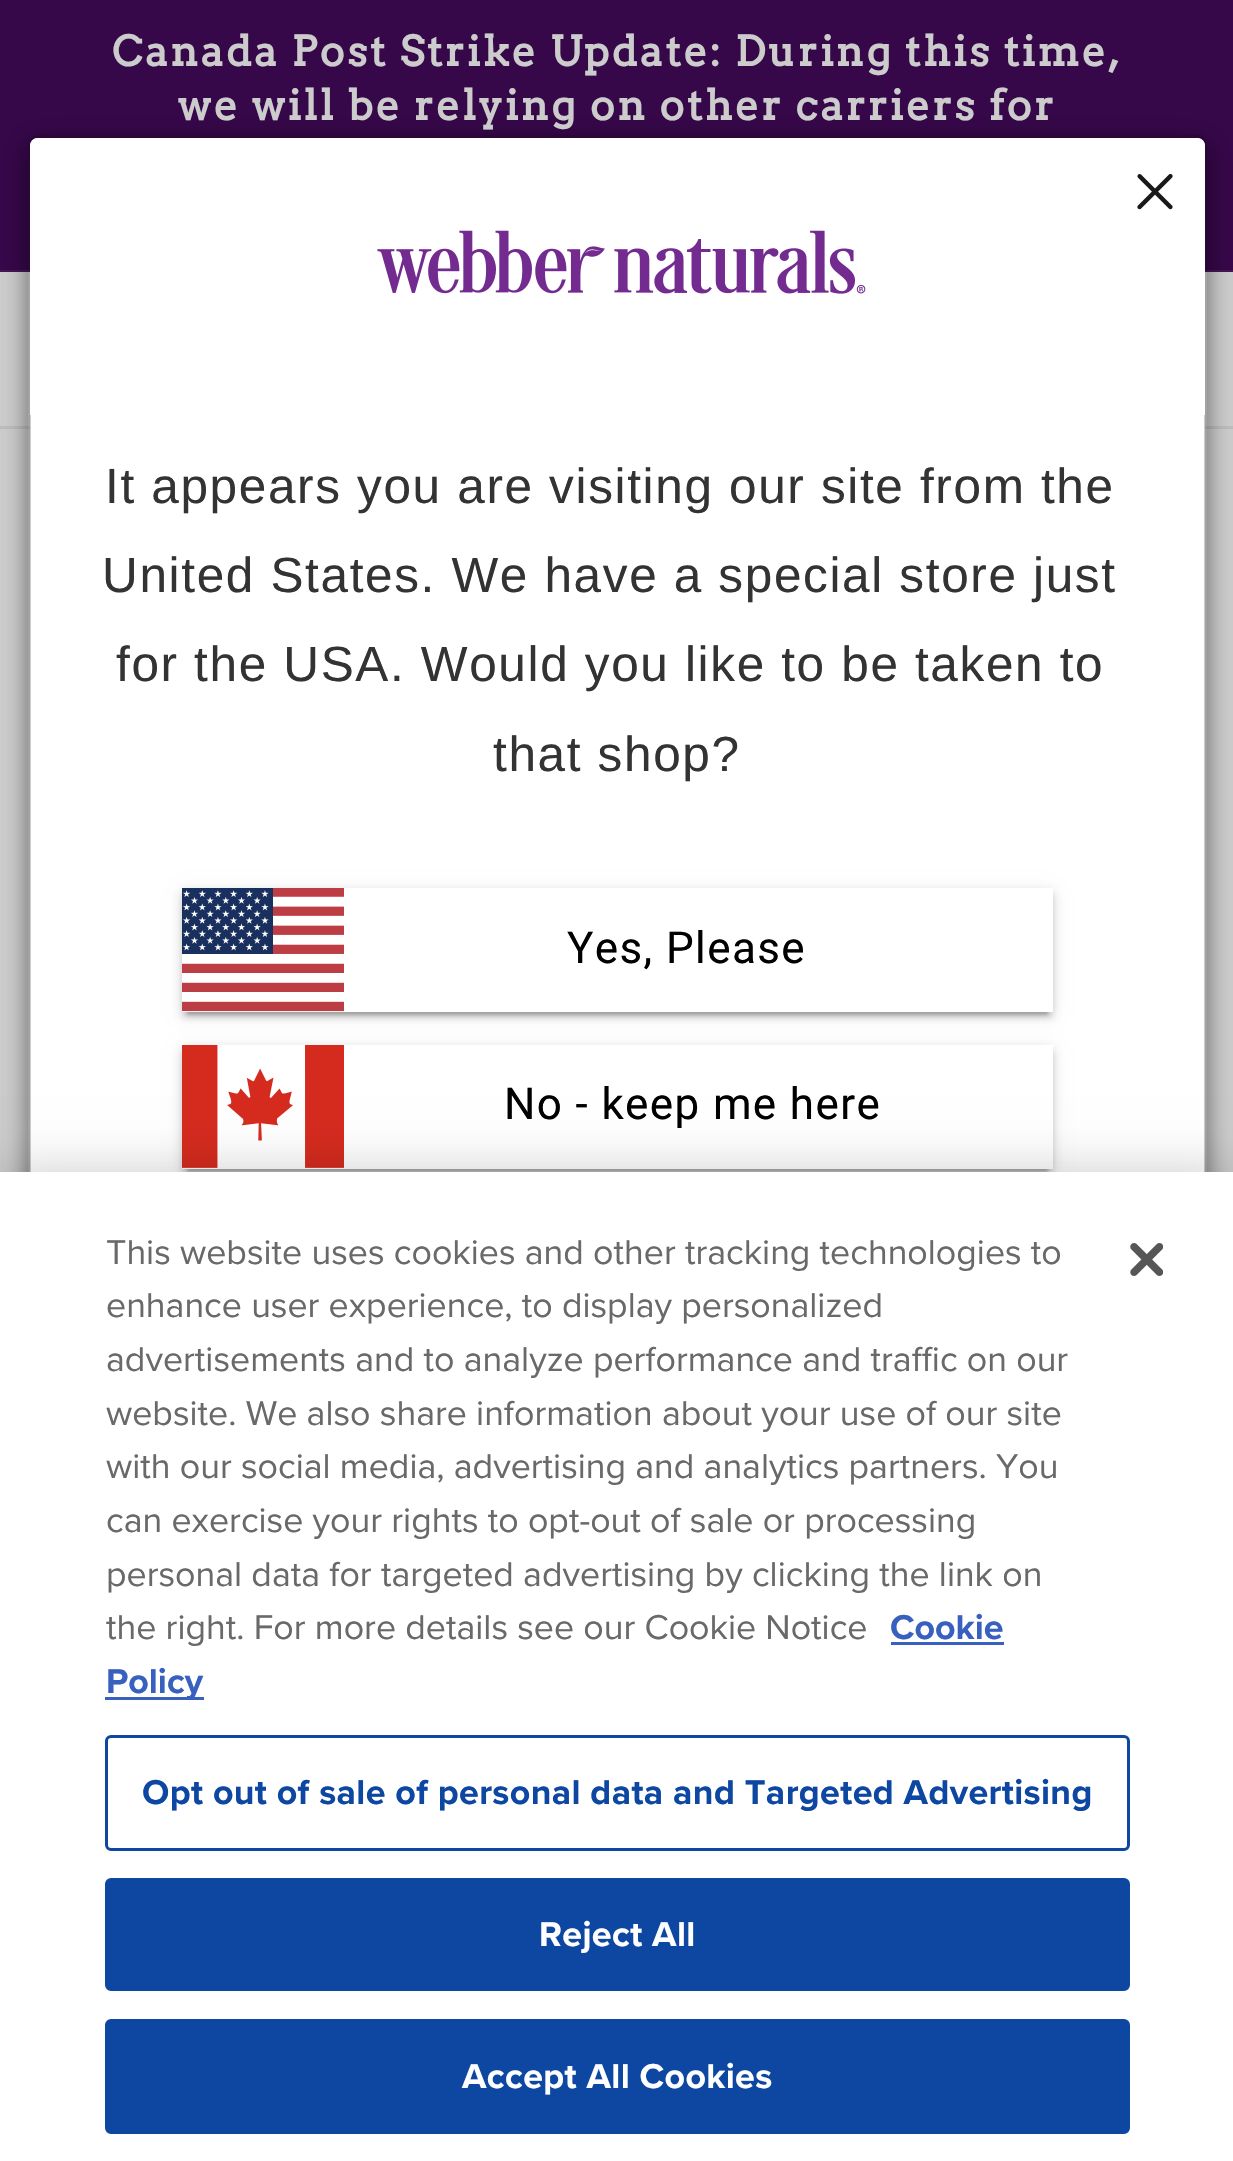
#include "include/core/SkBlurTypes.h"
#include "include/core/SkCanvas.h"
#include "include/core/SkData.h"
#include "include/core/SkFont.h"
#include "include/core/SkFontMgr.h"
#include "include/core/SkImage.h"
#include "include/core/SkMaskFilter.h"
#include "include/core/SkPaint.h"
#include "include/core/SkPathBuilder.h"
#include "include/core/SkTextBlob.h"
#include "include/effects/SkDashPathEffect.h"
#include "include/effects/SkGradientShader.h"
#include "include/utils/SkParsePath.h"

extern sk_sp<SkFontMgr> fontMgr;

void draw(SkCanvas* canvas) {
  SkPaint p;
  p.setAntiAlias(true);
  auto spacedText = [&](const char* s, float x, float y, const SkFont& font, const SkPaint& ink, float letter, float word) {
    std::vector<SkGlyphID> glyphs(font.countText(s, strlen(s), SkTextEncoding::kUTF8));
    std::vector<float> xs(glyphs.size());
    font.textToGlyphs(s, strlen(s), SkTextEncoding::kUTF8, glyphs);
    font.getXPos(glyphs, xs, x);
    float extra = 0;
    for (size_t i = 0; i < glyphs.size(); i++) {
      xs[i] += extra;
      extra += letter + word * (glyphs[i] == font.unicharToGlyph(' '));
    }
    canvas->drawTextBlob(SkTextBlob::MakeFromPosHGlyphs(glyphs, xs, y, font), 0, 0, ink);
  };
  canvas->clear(SkColorSetRGB(204, 204, 204));
  p.setColor(SkColorSetRGB(54, 7, 73));
  canvas->drawRect(SkRect::MakeLTRB(0, 0, 1233, 270), p);
  p.setColor(SkColorSetRGB(66, 23, 83));
  canvas->drawRect(SkRect::MakeLTRB(0, 270, 1233, 272), p);
  p.setColor(SkColorSetRGB(189, 189, 189));
  canvas->drawRect(SkRect::MakeLTRB(0, 426, 1233, 429), p);
  canvas->save();
  canvas->clipPath(SkPathBuilder(SkPathFillType::kEvenOdd).moveTo(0, 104).lineTo(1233, 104).lineTo(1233, 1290).lineTo(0, 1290).close().moveTo(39, 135).lineTo(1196, 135).cubicTo(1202, 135, 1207, 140, 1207, 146).lineTo(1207, 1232).cubicTo(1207, 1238, 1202, 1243, 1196, 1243).lineTo(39, 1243).cubicTo(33, 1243, 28, 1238, 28, 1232).lineTo(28, 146).cubicTo(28, 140, 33, 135, 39, 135).close().detach(), true);
  p.setColor(SkColorSetARGB(128, 0, 0, 0));
  p.setMaskFilter(SkMaskFilter::MakeBlur(kNormal_SkBlurStyle, 12.5f));
  canvas->drawRoundRect(SkRect::MakeLTRB(28, 143, 1207, 1251), 11, 11, p);
  p.setMaskFilter(nullptr);
  canvas->restore();
  p.setColor(SK_ColorWHITE);
  canvas->drawRoundRect(SkRect::MakeLTRB(30, 138, 1205, 1240), 8, 8, p);
  p.setStyle(SkPaint::kStroke_Style);
  p.setStrokeWidth(3);
  p.setColor(SkColorSetARGB(51, 0, 0, 0));
  canvas->drawRoundRect(SkRect::MakeLTRB(29.5f, 136.5f, 1205.5f, 1241.5f), 9.5f, 9.5f, p);
  p.setStyle(SkPaint::kFill_Style);
  p.setColor(SK_ColorWHITE);
  canvas->drawPath(SkPathBuilder().moveTo(38, 138).lineTo(1197, 138).cubicTo(1201.5f, 138, 1205, 141.5f, 1205, 146).lineTo(1205, 415).lineTo(30, 415).lineTo(30, 146).cubicTo(30, 141.5f, 33.5f, 138, 38, 138).close().detach(), p);
  canvas->drawImageRect(SkImages::DeferredFromEncodedData(SkData::MakeFromFileName("images/1.png")), SkRect::MakeLTRB(1137, 174, 1173, 210), SkSamplingOptions());
  canvas->drawImageRect(SkImages::DeferredFromEncodedData(SkData::MakeFromFileName("images/2.png")), SkRect::MakeLTRB(377, 230, 866, 294), SkSamplingOptions());
  p.setColor(SkColorSetARGB(31, 0, 0, 0));
  p.setMaskFilter(SkMaskFilter::MakeBlur(kNormal_SkBlurStyle, 7));
  canvas->drawRect(SkRect::MakeLTRB(182, 891, 1053, 1015), p);
  p.setMaskFilter(nullptr);
  p.setColor(SkColorSetARGB(51, 0, 0, 0));
  p.setMaskFilter(SkMaskFilter::MakeBlur(kNormal_SkBlurStyle, 1.5f));
  canvas->drawRect(SkRect::MakeLTRB(187, 902, 1048, 1015), p);
  p.setMaskFilter(nullptr);
  p.setColor(SkColorSetARGB(36, 0, 0, 0));
  p.setMaskFilter(SkMaskFilter::MakeBlur(kNormal_SkBlurStyle, 3));
  canvas->drawRect(SkRect::MakeLTRB(182, 894, 1053, 1018), p);
  p.setMaskFilter(nullptr);
  p.setColor(SK_ColorWHITE);
  canvas->drawRect(SkRect::MakeLTRB(182, 888, 1053, 1012), p);
  canvas->drawImageRect(SkImages::DeferredFromEncodedData(SkData::MakeFromFileName("images/3.png")), SkRect::MakeLTRB(182, 888, 344, 1012), SkSamplingOptions());
  p.setColor(SkColorSetARGB(31, 0, 0, 0));
  p.setMaskFilter(SkMaskFilter::MakeBlur(kNormal_SkBlurStyle, 7));
  canvas->drawRect(SkRect::MakeLTRB(182, 1048, 1053, 1172), p);
  p.setMaskFilter(nullptr);
  p.setColor(SkColorSetARGB(51, 0, 0, 0));
  p.setMaskFilter(SkMaskFilter::MakeBlur(kNormal_SkBlurStyle, 1.5f));
  canvas->drawRect(SkRect::MakeLTRB(187, 1059, 1048, 1172), p);
  p.setMaskFilter(nullptr);
  p.setColor(SkColorSetARGB(36, 0, 0, 0));
  p.setMaskFilter(SkMaskFilter::MakeBlur(kNormal_SkBlurStyle, 3));
  canvas->drawRect(SkRect::MakeLTRB(182, 1051, 1053, 1174), p);
  p.setMaskFilter(nullptr);
  p.setColor(SK_ColorWHITE);
  canvas->drawRect(SkRect::MakeLTRB(182, 1045, 1053, 1169), p);
  canvas->drawImageRect(SkImages::DeferredFromEncodedData(SkData::MakeFromFileName("images/4.png")), SkRect::MakeLTRB(182, 1045, 344, 1168), SkSamplingOptions());
  p.setColor(SkColorSetARGB(51, 0, 0, 0));
  p.setMaskFilter(SkMaskFilter::MakeBlur(kNormal_SkBlurStyle, 25));
  canvas->drawRect(SkRect::MakeLTRB(0, 1172, 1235, 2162), p);
  p.setMaskFilter(nullptr);
  p.setColor(SK_ColorWHITE);
  canvas->drawRect(SkRect::MakeLTRB(0, 1172, 1233, 2161), p);
  p.setColor(SkColorSetRGB(56, 96, 190));
  canvas->drawRect(SkRect::MakeLTRB(891, 1642, 1004, 1645), p);
  canvas->drawRect(SkRect::MakeLTRB(105, 1697, 204, 1700), p);
  p.setStyle(SkPaint::kStroke_Style);
  p.setColor(SkColorSetRGB(13, 71, 161));
  canvas->drawRoundRect(SkRect::MakeLTRB(106.5f, 1736.5f, 1128.5f, 1849.5f), 4.5f, 4.5f, p);
  p.setStyle(SkPaint::kFill_Style);
  canvas->drawRoundRect(SkRect::MakeLTRB(106.5f, 1879.5f, 1128.5f, 1989.5f), 4.5f, 4.5f, p);
  p.setStyle(SkPaint::kStroke_Style);
  canvas->drawRoundRect(SkRect::MakeLTRB(106.5f, 1879.5f, 1128.5f, 1989.5f), 4.5f, 4.5f, p);
  p.setStyle(SkPaint::kFill_Style);
  canvas->drawRoundRect(SkRect::MakeLTRB(106.5f, 2020.5f, 1128.5f, 2132.5f), 4.5f, 4.5f, p);
  p.setStyle(SkPaint::kStroke_Style);
  canvas->drawRoundRect(SkRect::MakeLTRB(106.5f, 2020.5f, 1128.5f, 2132.5f), 4.5f, 4.5f, p);
  canvas->drawImageRect(SkImages::DeferredFromEncodedData(SkData::MakeFromFileName("images/5.png")), SkRect::MakeLTRB(1130, 1243, 1163, 1276), SkSamplingOptions());
  SkFont font1(fontMgr->matchFamilyStyle("Arvo", SkFontStyle::Bold()), 41.25f);
  font1.setSubpixel(true);
  p.setStyle(SkPaint::kFill_Style);
  p.setColor(SkColorSetRGB(204, 204, 204));
  spacedText("Canada Post Strike Update: During this time,", 112, 66, font1, p, 2.75f, 0);
  spacedText("we will be relying on other carriers for", 178, 120, font1, p, 2.75f, 0);
  SkFont font2(fontMgr->matchFamilyStyle("Liberation Sans", SkFontStyle::Normal()), 49.5f);
  font2.setSubpixel(true);
  p.setColor(SkColorSetRGB(51, 51, 51));
  spacedText("It appears you are visiting our site from the", 105, 503, font2, p, 1.65f, 0);
  spacedText("United States. We have a special store just", 102, 592, font2, p, 1.65f, 0);
  spacedText("for the USA. Would you like to be taken to", 116, 681, font2, p, 1.65f, 0);
  spacedText("that shop?", 493, 771, font2, p, 1.65f, 0);
  SkFont font3(fontMgr->matchFamilyStyle("Roboto", SkFontStyle::Normal()), 44);
  font3.setSubpixel(true);
  p.setColor(SK_ColorBLACK);
  spacedText("Yes, Please", 567, 963, font3, p, 1.4f, 0);
  spacedText("No - keep me here", 504, 1119, font3, p, 1.4f, 0);
  SkFont font4(fontMgr->matchFamilyStyle("Proxima Nova", SkFontStyle::Normal()), 35.75f);
  font4.setSubpixel(true);
  p.setColor(SkColorSetRGB(105, 105, 105));
  canvas->drawString("This website uses cookies and other tracking technologies to", 106, 1264, font4, p);
  canvas->drawString("enhance user experience, to display personalized", 106, 1317, font4, p);
  canvas->drawString("advertisements and to analyze performance and traffic on our", 106, 1371, font4, p);
  canvas->drawString("website. We also share information about your use of our site", 106, 1425, font4, p);
  canvas->drawString("with our social media, advertising and analytics partners. You", 106, 1478, font4, p);
  canvas->drawString("can exercise your rights to opt-out of sale or processing", 106, 1532, font4, p);
  canvas->drawString("personal data for targeted advertising by clicking the link on", 106, 1586, font4, p);
  canvas->drawString("the right. For more details see our Cookie Notice", 106, 1639, font4, p);
  SkFont font5(fontMgr->matchFamilyStyle("Proxima Nova", SkFontStyle::Bold()), 35.75f);
  font5.setSubpixel(true);
  p.setColor(SkColorSetRGB(56, 96, 190));
  canvas->drawString("Cookie", 890, 1639, font5, p);
  canvas->drawString("Policy", 106, 1693, font5, p);
  p.setColor(SkColorSetRGB(13, 71, 161));
  spacedText("Opt out of sale of personal data and Targeted Advertising", 142, 1804, font5, p, 0.35f, 0);
  p.setColor(SK_ColorWHITE);
  spacedText("Reject All", 539, 1946, font5, p, 0.35f, 0);
  spacedText("Accept All Cookies", 462, 2088, font5, p, 0.35f, 0);
}
